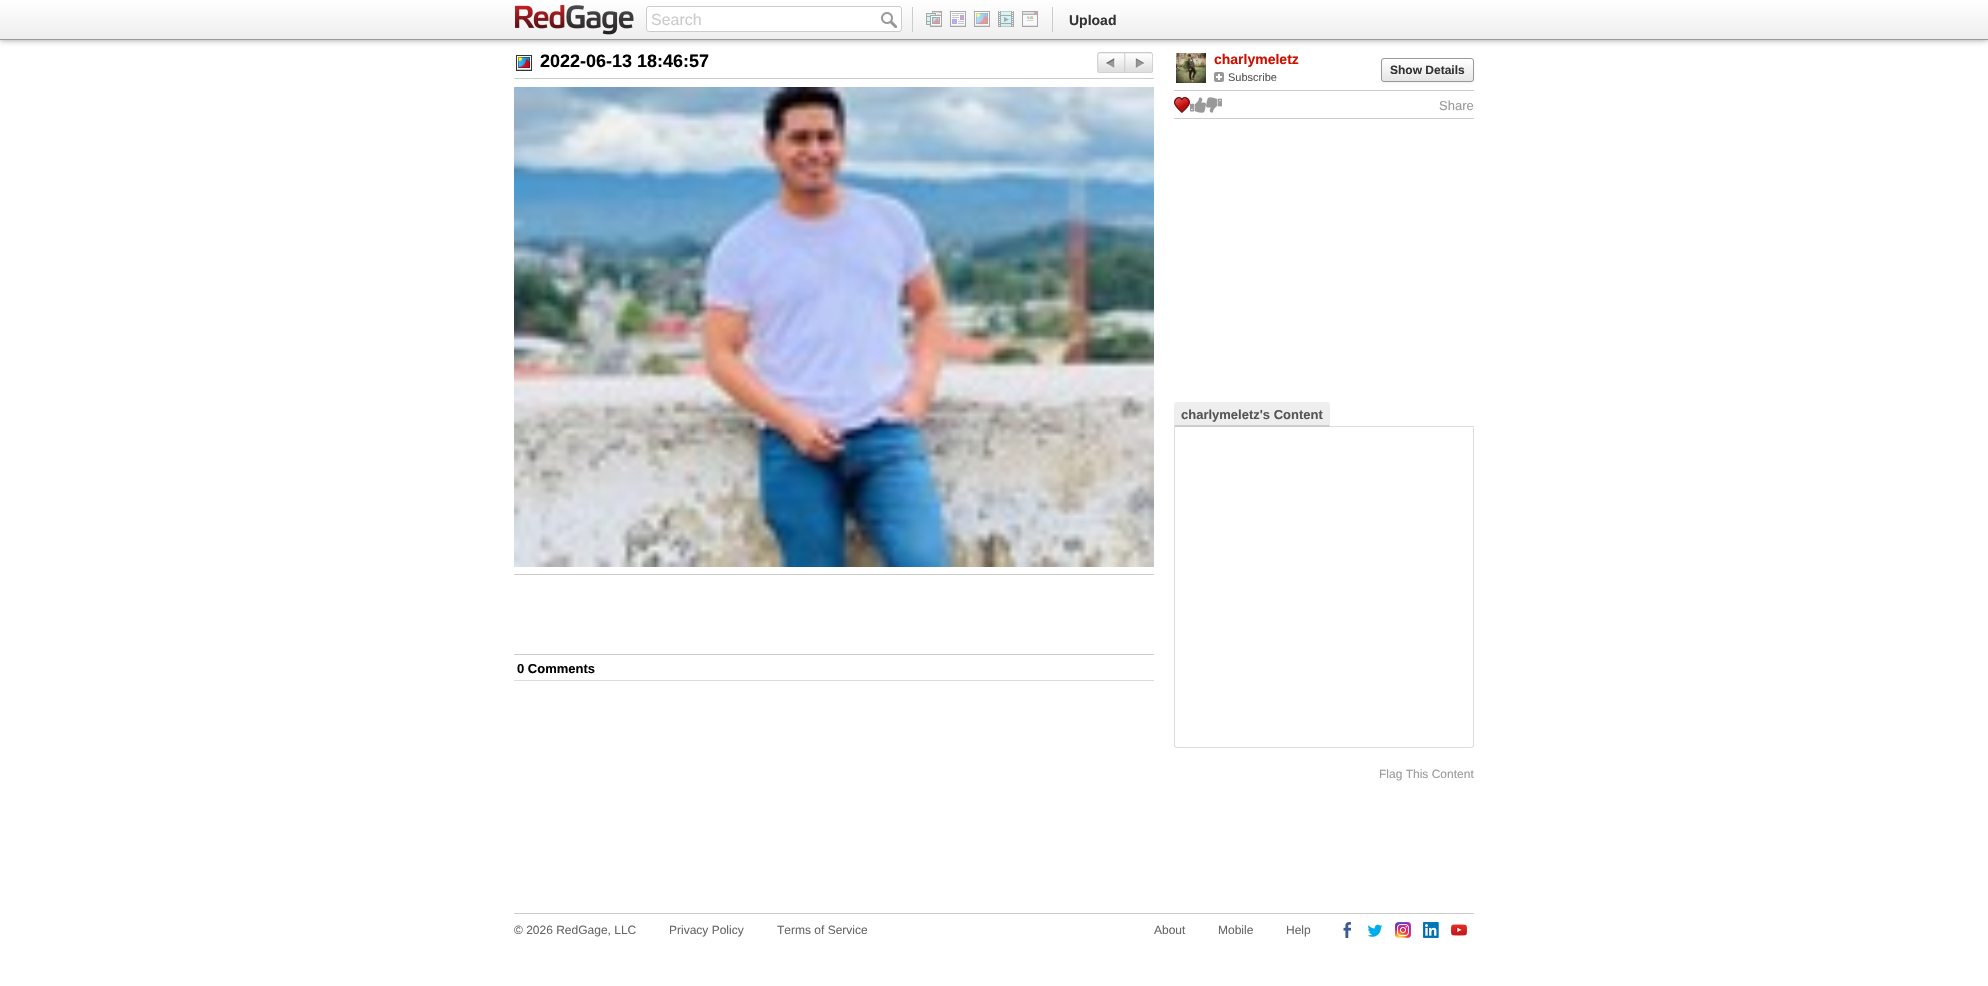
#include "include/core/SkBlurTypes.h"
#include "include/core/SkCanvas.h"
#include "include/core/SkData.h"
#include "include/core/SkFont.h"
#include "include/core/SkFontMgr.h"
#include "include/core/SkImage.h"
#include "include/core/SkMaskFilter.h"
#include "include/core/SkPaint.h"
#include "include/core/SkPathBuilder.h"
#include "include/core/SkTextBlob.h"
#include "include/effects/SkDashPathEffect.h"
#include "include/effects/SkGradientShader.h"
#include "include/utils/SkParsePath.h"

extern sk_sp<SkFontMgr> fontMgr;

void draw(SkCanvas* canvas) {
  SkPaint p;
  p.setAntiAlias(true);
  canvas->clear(SK_ColorWHITE);
  p.setColor(SkColorSetARGB(102, 0, 0, 0));
  p.setMaskFilter(SkMaskFilter::MakeBlur(kNormal_SkBlurStyle, 3));
  canvas->drawRect(SkRect::MakeLTRB(0, 0, 1988, 40), p);
  p.setMaskFilter(nullptr);
  {
    const SkColor colors[] = {SK_ColorWHITE, SkColorSetRGB(238, 238, 238)};
    const float stops[] = {0, 1};
    const SkPoint ends[] = {{994, 0}, {994, 39}};
    p.setShader(SkGradientShader::MakeLinear(ends, colors, stops, 2, SkTileMode::kClamp));
    p.setAlpha(255);
  }
  canvas->drawRect(SkRect::MakeLTRB(0, 0, 1988, 39), p);
  p.setShader(nullptr);
  p.setColor(SkColorSetRGB(153, 153, 153));
  canvas->drawRect(SkRect::MakeLTRB(0, 39, 1988, 40), p);
  canvas->drawImageRect(SkImages::DeferredFromEncodedData(SkData::MakeFromFileName("images/1.png")), SkRect::MakeLTRB(515, 5, 634, 35), SkSamplingOptions());
  p.setColor(SK_ColorWHITE);
  canvas->drawRoundRect(SkRect::MakeLTRB(646.5f, 6.5f, 901.5f, 31.5f), 2.5f, 2.5f, p);
  p.setStyle(SkPaint::kStroke_Style);
  p.setStrokeWidth(1);
  p.setColor(SkColorSetRGB(204, 204, 204));
  canvas->drawRoundRect(SkRect::MakeLTRB(646.5f, 6.5f, 901.5f, 31.5f), 2.5f, 2.5f, p);
  canvas->drawImageRect(SkImages::DeferredFromEncodedData(SkData::MakeFromFileName("images/2.png")), SkRect::MakeLTRB(881, 12, 897, 28), SkSamplingOptions());
  p.setStyle(SkPaint::kFill_Style);
  canvas->drawRect(SkRect::MakeLTRB(1052, 7, 1053, 32), p);
  canvas->drawRect(SkRect::MakeLTRB(912, 7, 913, 32), p);
  canvas->drawImageRect(SkImages::DeferredFromEncodedData(SkData::MakeFromFileName("images/3.png")), SkRect::MakeLTRB(926, 11, 942, 27), SkSamplingOptions());
  canvas->drawImageRect(SkImages::DeferredFromEncodedData(SkData::MakeFromFileName("images/4.png")), SkRect::MakeLTRB(950, 11, 966, 27), SkSamplingOptions());
  canvas->drawImageRect(SkImages::DeferredFromEncodedData(SkData::MakeFromFileName("images/5.png")), SkRect::MakeLTRB(974, 11, 990, 27), SkSamplingOptions());
  canvas->drawImageRect(SkImages::DeferredFromEncodedData(SkData::MakeFromFileName("images/6.png")), SkRect::MakeLTRB(998, 11, 1014, 27), SkSamplingOptions());
  canvas->drawImageRect(SkImages::DeferredFromEncodedData(SkData::MakeFromFileName("images/7.png")), SkRect::MakeLTRB(1022, 11, 1038, 27), SkSamplingOptions());
  canvas->drawRect(SkRect::MakeLTRB(514, 78, 1154, 79), p);
  canvas->drawImageRect(SkImages::DeferredFromEncodedData(SkData::MakeFromFileName("images/8.png")), SkRect::MakeLTRB(516, 55, 532, 71), SkSamplingOptions());
  canvas->drawImageRect(SkImages::DeferredFromEncodedData(SkData::MakeFromFileName("images/9.png")), SkRect::MakeLTRB(1097, 52, 1124, 73), SkSamplingOptions());
  canvas->drawImageRect(SkImages::DeferredFromEncodedData(SkData::MakeFromFileName("images/10.png")), SkRect::MakeLTRB(1124, 52, 1153, 73), SkSamplingOptions());
  canvas->drawImageRect(SkImages::DeferredFromEncodedData(SkData::MakeFromFileName("images/11.png")), SkRect::MakeLTRB(514, 87, 1154, 567), SkSamplingOptions());
  canvas->drawRect(SkRect::MakeLTRB(514, 574, 1154, 575), p);
  canvas->drawRect(SkRect::MakeLTRB(514, 654, 1154, 655), p);
  p.setColor(SkColorSetRGB(221, 221, 221));
  canvas->drawRect(SkRect::MakeLTRB(514, 680, 1154, 681), p);
  canvas->drawImageRect(SkImages::DeferredFromEncodedData(SkData::MakeFromFileName("images/12.png")), SkRect::MakeLTRB(1176, 53, 1206, 83), SkSamplingOptions());
  canvas->drawImageRect(SkImages::DeferredFromEncodedData(SkData::MakeFromFileName("images/13.png")), SkRect::MakeLTRB(1214, 72, 1224, 82), SkSamplingOptions());
  p.setColor(SkColorSetARGB(13, 0, 0, 0));
  p.setMaskFilter(SkMaskFilter::MakeBlur(kNormal_SkBlurStyle, 1));
  canvas->drawRoundRect(SkRect::MakeLTRB(1381, 59, 1474, 83), 3, 3, p);
  p.setMaskFilter(nullptr);
  canvas->save();
  canvas->clipPath(SkPathBuilder().moveTo(1384, 58).lineTo(1471, 58).cubicTo(1472.5f, 58, 1474, 59.5f, 1474, 61).lineTo(1474, 79).cubicTo(1474, 80.5f, 1472.5f, 82, 1471, 82).lineTo(1384, 82).cubicTo(1382.5f, 82, 1381, 80.5f, 1381, 79).lineTo(1381, 61).cubicTo(1381, 59.5f, 1382.5f, 58, 1384, 58).close().detach(), true);
  {
    const SkColor colors[] = {SK_ColorWHITE, SkColorSetRGB(230, 230, 230)};
    const float stops[] = {0, 1};
    const SkPoint ends[] = {{1428, 59}, {1428, 81}};
    p.setShader(SkGradientShader::MakeLinear(ends, colors, stops, 2, SkTileMode::kClamp));
    p.setAlpha(255);
  }
  canvas->drawRect(SkRect::MakeLTRB(1381, 59, 1474, 81), p);
  canvas->restore();
  p.setStyle(SkPaint::kStroke_Style);
  p.setShader(nullptr);
  p.setColor(SkColorSetRGB(153, 153, 153));
  canvas->drawRoundRect(SkRect::MakeLTRB(1381.5f, 58.5f, 1473.5f, 81.5f), 2.5f, 2.5f, p);
  p.setStyle(SkPaint::kFill_Style);
  p.setColor(SkColorSetRGB(204, 204, 204));
  canvas->drawRect(SkRect::MakeLTRB(1174, 90, 1474, 91), p);
  canvas->drawRect(SkRect::MakeLTRB(1174, 118, 1474, 119), p);
  canvas->drawImageRect(SkImages::DeferredFromEncodedData(SkData::MakeFromFileName("images/14.png")), SkRect::MakeLTRB(1174, 97, 1190, 113), SkSamplingOptions());
  canvas->drawImageRect(SkImages::DeferredFromEncodedData(SkData::MakeFromFileName("images/15.png")), SkRect::MakeLTRB(1190, 97, 1206, 113), SkSamplingOptions());
  canvas->drawImageRect(SkImages::DeferredFromEncodedData(SkData::MakeFromFileName("images/16.png")), SkRect::MakeLTRB(1206, 97, 1222, 113), SkSamplingOptions());
  p.setColor(SkColorSetRGB(221, 221, 221));
  canvas->drawRect(SkRect::MakeLTRB(1330, 426, 1474, 427), p);
  p.setColor(SkColorSetRGB(238, 238, 238));
  canvas->drawPath(SkPathBuilder().moveTo(1177, 402).lineTo(1327, 402).cubicTo(1328.5f, 402, 1330, 403.5f, 1330, 405).lineTo(1330, 427).lineTo(1174, 427).lineTo(1174, 405).cubicTo(1174, 403.5f, 1175.5f, 402, 1177, 402).close().detach(), p);
  p.setColor(SkColorSetRGB(204, 204, 204));
  canvas->drawPath(SkPathBuilder().moveTo(1330, 427).lineTo(1329, 425).lineTo(1175, 425).lineTo(1174, 427).close().detach(), p);
  p.setColor(SkColorSetRGB(221, 221, 221));
  canvas->drawPath(SkPathBuilder(SkPathFillType::kEvenOdd).moveTo(1174, 427).lineTo(1474, 427).lineTo(1474, 745).cubicTo(1474, 747, 1473, 748, 1471, 748).lineTo(1177, 748).cubicTo(1175, 748, 1174, 747, 1174, 745).close().moveTo(1175, 427).lineTo(1473, 427).lineTo(1473, 745).cubicTo(1473, 746, 1472, 747, 1471, 747).lineTo(1177, 747).cubicTo(1176, 747, 1175, 746, 1175, 745).close().detach(), p);
  p.setColor(SkColorSetRGB(204, 204, 204));
  canvas->drawRect(SkRect::MakeLTRB(514, 913, 1474, 914), p);
  canvas->drawImageRect(SkImages::DeferredFromEncodedData(SkData::MakeFromFileName("images/17.png")), SkRect::MakeLTRB(1343, 922, 1351, 938), SkSamplingOptions());
  canvas->drawImageRect(SkImages::DeferredFromEncodedData(SkData::MakeFromFileName("images/18.png")), SkRect::MakeLTRB(1367, 924, 1383, 937), SkSamplingOptions());
  canvas->drawImageRect(SkImages::DeferredFromEncodedData(SkData::MakeFromFileName("images/19.png")), SkRect::MakeLTRB(1395, 922, 1411, 938), SkSamplingOptions());
  canvas->drawImageRect(SkImages::DeferredFromEncodedData(SkData::MakeFromFileName("images/20.png")), SkRect::MakeLTRB(1423, 922, 1439, 938), SkSamplingOptions());
  canvas->drawImageRect(SkImages::DeferredFromEncodedData(SkData::MakeFromFileName("images/21.png")), SkRect::MakeLTRB(1451, 924, 1467, 936), SkSamplingOptions());
  SkFont font1(fontMgr->matchFamilyStyle("Liberation Sans", SkFontStyle::Normal()), 16);
  font1.setSubpixel(true);
  canvas->drawString("Search", 651, 25, font1, p);
  SkFont font2(fontMgr->matchFamilyStyle("Liberation Sans", SkFontStyle::Bold()), 14);
  font2.setSubpixel(true);
  p.setColor(SkColorSetRGB(51, 51, 51));
  canvas->drawString("Upload", 1069, 25, font2, p);
  SkFont font3(fontMgr->matchFamilyStyle("Liberation Sans", SkFontStyle::Bold()), 18);
  font3.setSubpixel(true);
  p.setColor(SK_ColorBLACK);
  canvas->drawString("2022-06-13 18:46:57", 540, 67, font3, p);
  SkFont font4(fontMgr->matchFamilyStyle("Liberation Sans", SkFontStyle::Bold()), 13);
  font4.setSubpixel(true);
  canvas->drawString("0 Comments", 517, 673, font4, p);
  p.setColor(SkColorSetRGB(204, 17, 0));
  canvas->drawString("charlymeletz", 1214, 64, font2, p);
  SkFont font5(fontMgr->matchFamilyStyle("Liberation Sans", SkFontStyle::Normal()), 11);
  font5.setSubpixel(true);
  p.setColor(SkColorSetRGB(85, 85, 85));
  canvas->drawString("Subscribe", 1228, 81, font5, p);
  SkFont font6(fontMgr->matchFamilyStyle("Liberation Sans", SkFontStyle::Bold()), 12);
  font6.setSubpixel(true);
  p.setColor(SkColorSetRGB(51, 51, 51));
  canvas->drawString("Show Details", 1390, 74, font6, p);
  SkFont font7(fontMgr->matchFamilyStyle("Liberation Sans", SkFontStyle::Normal()), 13);
  font7.setSubpixel(true);
  p.setColor(SkColorSetRGB(153, 153, 153));
  canvas->drawString("Share", 1439, 110, font7, p);
  p.setColor(SkColorSetRGB(85, 85, 85));
  canvas->drawString("charlymeletz's Content", 1181, 419, font4, p);
  SkFont font8(fontMgr->matchFamilyStyle("Liberation Sans", SkFontStyle::Normal()), 12);
  font8.setSubpixel(true);
  p.setColor(SkColorSetRGB(153, 153, 153));
  canvas->drawString("Flag This Content", 1379, 778, font8, p);
  p.setColor(SkColorSetRGB(102, 102, 102));
  canvas->drawString("© 2026 RedGage, LLC", 514, 934, font8, p);
  canvas->drawString("Privacy Policy", 669, 934, font8, p);
  canvas->drawString("Terms of Service", 777, 934, font8, p);
  canvas->drawString("About", 1154, 934, font8, p);
  canvas->drawString("Mobile", 1218, 934, font8, p);
  canvas->drawString("Help", 1286, 934, font8, p);
}
